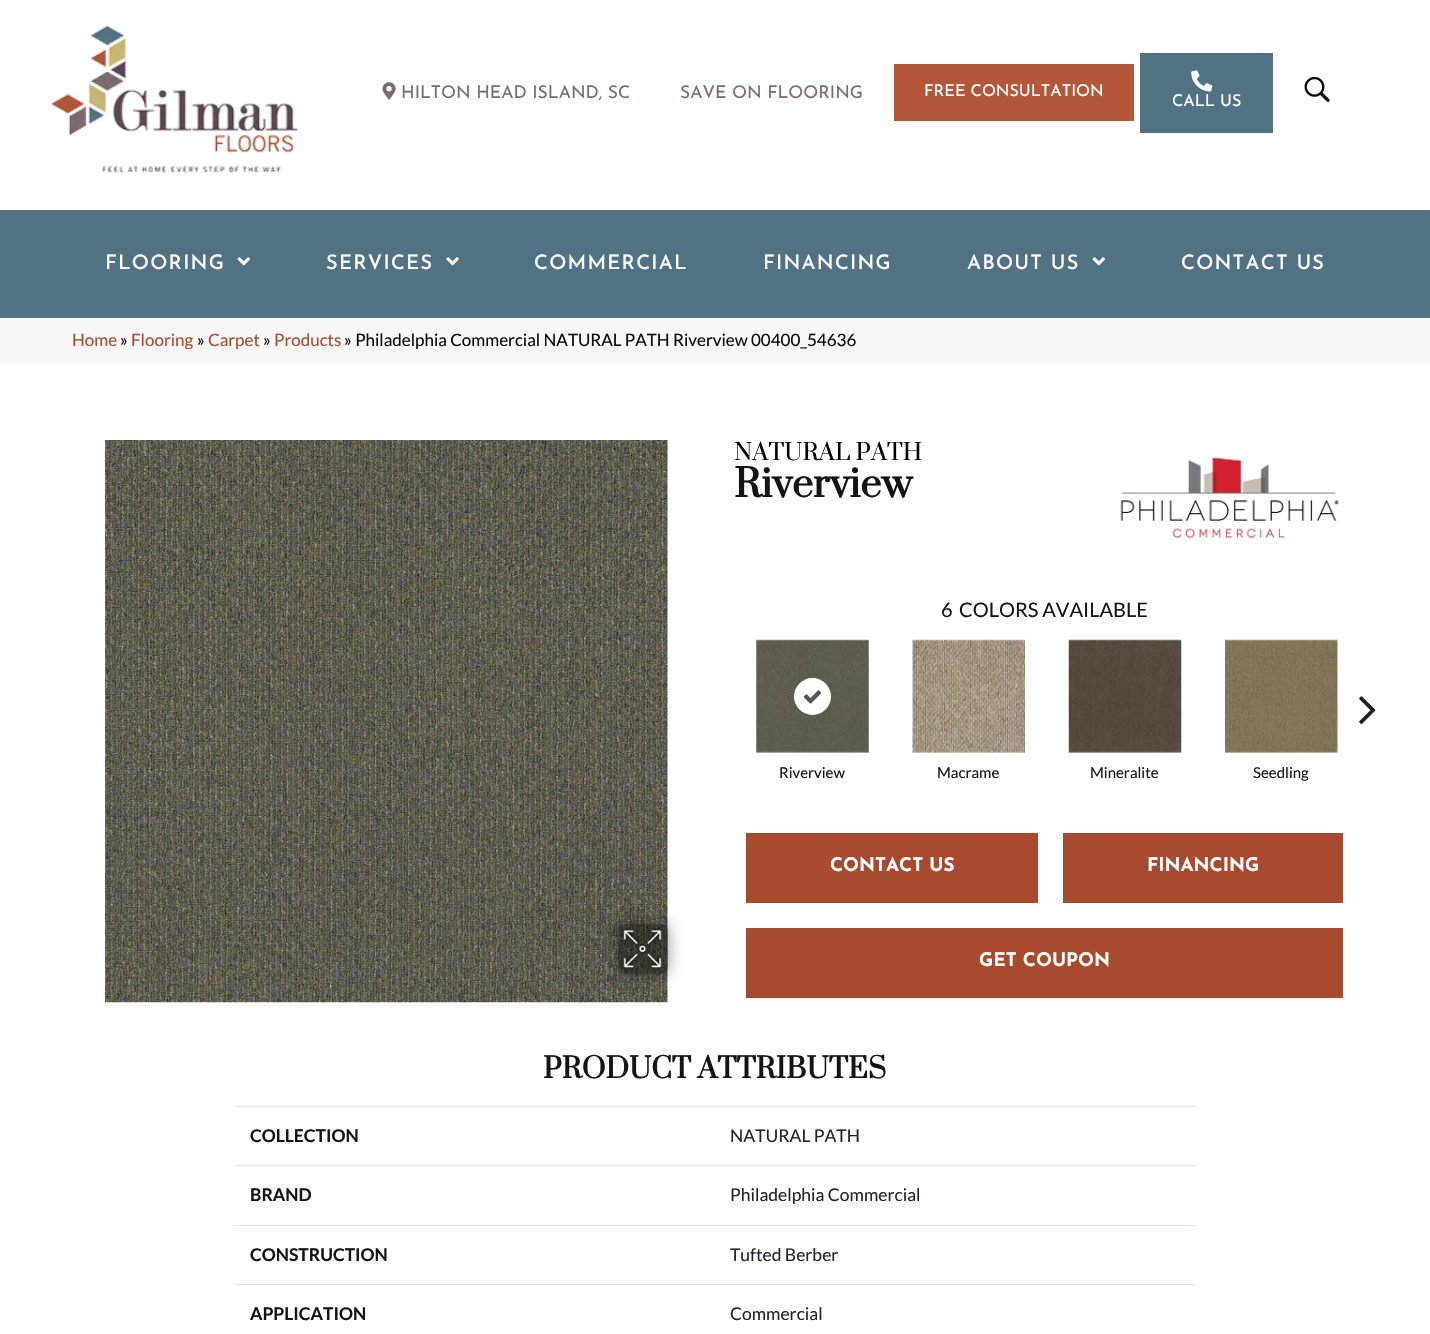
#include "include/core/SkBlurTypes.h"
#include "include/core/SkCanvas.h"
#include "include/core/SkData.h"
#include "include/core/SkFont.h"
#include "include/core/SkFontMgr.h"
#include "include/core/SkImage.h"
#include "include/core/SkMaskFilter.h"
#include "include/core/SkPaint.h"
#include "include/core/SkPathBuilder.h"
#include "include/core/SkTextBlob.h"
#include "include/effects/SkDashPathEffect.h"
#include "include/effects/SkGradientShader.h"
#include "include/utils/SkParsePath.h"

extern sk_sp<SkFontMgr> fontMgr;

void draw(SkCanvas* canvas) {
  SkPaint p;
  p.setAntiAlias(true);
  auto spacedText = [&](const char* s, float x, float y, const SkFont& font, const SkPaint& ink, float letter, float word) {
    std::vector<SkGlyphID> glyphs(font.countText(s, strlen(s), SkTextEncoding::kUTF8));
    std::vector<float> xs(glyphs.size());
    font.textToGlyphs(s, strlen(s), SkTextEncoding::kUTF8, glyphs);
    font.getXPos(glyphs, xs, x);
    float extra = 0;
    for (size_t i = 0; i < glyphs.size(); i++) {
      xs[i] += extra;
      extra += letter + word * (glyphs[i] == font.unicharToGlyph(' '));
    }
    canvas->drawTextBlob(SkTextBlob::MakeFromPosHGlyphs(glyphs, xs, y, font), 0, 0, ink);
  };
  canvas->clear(SK_ColorWHITE);
  canvas->drawImageRect(SkImages::DeferredFromEncodedData(SkData::MakeFromFileName("images/1.png")), SkRect::MakeLTRB(50, 25, 298, 173), SkSamplingOptions());
  canvas->drawImageRect(SkImages::DeferredFromEncodedData(SkData::MakeFromFileName("images/2.png")), SkRect::MakeLTRB(382, 82, 396, 100), SkSamplingOptions());
  p.setColor(SkColorSetRGB(180, 86, 58));
  canvas->drawRect(SkRect::MakeLTRB(894, 64, 1134, 121), p);
  p.setColor(SkColorSetRGB(81, 114, 131));
  canvas->drawRect(SkRect::MakeLTRB(1140, 53, 1273, 133), p);
  canvas->drawImageRect(SkImages::DeferredFromEncodedData(SkData::MakeFromFileName("images/3.png")), SkRect::MakeLTRB(1191, 70, 1213, 92), SkSamplingOptions());
  canvas->drawImageRect(SkImages::DeferredFromEncodedData(SkData::MakeFromFileName("images/4.png")), SkRect::MakeLTRB(1304, 76, 1330, 102), SkSamplingOptions());
  canvas->drawRect(SkRect::MakeLTRB(0, 210, 1430, 318), p);
  canvas->drawImageRect(SkImages::DeferredFromEncodedData(SkData::MakeFromFileName("images/5.png")), SkRect::MakeLTRB(237, 257, 250, 266), SkSamplingOptions());
  canvas->drawImageRect(SkImages::DeferredFromEncodedData(SkData::MakeFromFileName("images/6.png")), SkRect::MakeLTRB(446, 257, 459, 266), SkSamplingOptions());
  canvas->drawImageRect(SkImages::DeferredFromEncodedData(SkData::MakeFromFileName("images/5.png")), SkRect::MakeLTRB(1092, 257, 1105, 266), SkSamplingOptions());
  p.setColor(SkColorSetRGB(247, 247, 247));
  canvas->drawRect(SkRect::MakeLTRB(0, 318, 1430, 365), p);
  canvas->drawImageRect(SkImages::DeferredFromEncodedData(SkData::MakeFromFileName("images/7.png")), SkRect::MakeLTRB(105, 440, 668, 1003), SkSamplingOptions());
  canvas->save();
  canvas->clipPath(SkPathBuilder(SkPathFillType::kEvenOdd).moveTo(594, 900).lineTo(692, 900).lineTo(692, 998).lineTo(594, 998).close().moveTo(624, 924).lineTo(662, 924).cubicTo(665.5f, 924, 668, 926.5f, 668, 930).lineTo(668, 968).cubicTo(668, 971.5f, 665.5f, 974, 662, 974).lineTo(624, 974).cubicTo(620.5f, 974, 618, 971.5f, 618, 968).lineTo(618, 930).cubicTo(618, 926.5f, 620.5f, 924, 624, 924).close().detach(), true);
  p.setColor(SkColorSetARGB(105, 0, 0, 0));
  p.setMaskFilter(SkMaskFilter::MakeBlur(kNormal_SkBlurStyle, 7.5f));
  canvas->drawRoundRect(SkRect::MakeLTRB(618, 924, 668, 974), 6, 6, p);
  p.setMaskFilter(nullptr);
  canvas->restore();
  p.setColor(SkColorSetARGB(102, 0, 0, 0));
  canvas->drawRoundRect(SkRect::MakeLTRB(618, 924, 668, 974), 6, 6, p);
  canvas->drawImageRect(SkImages::DeferredFromEncodedData(SkData::MakeFromFileName("images/8.png")), SkRect::MakeLTRB(621, 927, 664, 971), SkSamplingOptions());
  canvas->drawImageRect(SkImages::DeferredFromEncodedData(SkData::MakeFromFileName("images/9.png")), SkRect::MakeLTRB(1120, 457, 1339, 539), SkSamplingOptions());
  canvas->drawImageRect(SkImages::DeferredFromEncodedData(SkData::MakeFromFileName("images/10.png")), SkRect::MakeLTRB(1359, 696, 1376, 725), SkSamplingOptions());
  canvas->drawImageRect(SkImages::DeferredFromEncodedData(SkData::MakeFromFileName("images/11.png")), SkRect::MakeLTRB(756, 639, 869, 753), SkSamplingOptions());
  p.setColor(SK_ColorWHITE);
  canvas->drawCircle(812.5f, 696.5f, 18.5f, p);
  canvas->drawImageRect(SkImages::DeferredFromEncodedData(SkData::MakeFromFileName("images/12.png")), SkRect::MakeLTRB(803, 690, 822, 704), SkSamplingOptions());
  canvas->drawImageRect(SkImages::DeferredFromEncodedData(SkData::MakeFromFileName("images/13.png")), SkRect::MakeLTRB(912, 639, 1025, 753), SkSamplingOptions());
  canvas->drawImageRect(SkImages::DeferredFromEncodedData(SkData::MakeFromFileName("images/14.png")), SkRect::MakeLTRB(1068, 639, 1182, 753), SkSamplingOptions());
  canvas->drawImageRect(SkImages::DeferredFromEncodedData(SkData::MakeFromFileName("images/15.png")), SkRect::MakeLTRB(1225, 639, 1338, 753), SkSamplingOptions());
  p.setColor(SkColorSetRGB(168, 74, 46));
  canvas->drawRect(SkRect::MakeLTRB(746, 833, 1038, 903), p);
  canvas->drawRect(SkRect::MakeLTRB(1063, 833, 1343, 903), p);
  canvas->drawRect(SkRect::MakeLTRB(746, 928, 1343, 998), p);
  p.setColor(SkColorSetRGB(222, 226, 230));
  canvas->drawRect(SkRect::MakeLTRB(235, 1106, 1196, 1107), p);
  canvas->drawRect(SkRect::MakeLTRB(235, 1165, 1196, 1166), p);
  canvas->drawRect(SkRect::MakeLTRB(235, 1225, 1196, 1226), p);
  canvas->drawRect(SkRect::MakeLTRB(235, 1284, 1196, 1285), p);
  SkFont font1(fontMgr->matchFamilyStyle("Josefin Sans", SkFontStyle::Normal()), 17.5f);
  font1.setSubpixel(true);
  p.setColor(SkColorSetRGB(126, 107, 113));
  canvas->drawString("HILTON HEAD ISLAND, SC", 401, 98, font1, p);
  canvas->drawString("SAVE ON FLOORING", 680, 98, font1, p);
  SkFont font2(fontMgr->matchFamilyStyle("Josefin Sans", SkFontStyle::Normal()), 16.25f);
  font2.setSubpixel(true);
  p.setColor(SK_ColorWHITE);
  canvas->drawString("FREE CONSULTATION", 924, 96, font2, p);
  canvas->drawString("CALL US", 1172, 106, font2, p);
  SkFont font3(fontMgr->matchFamilyStyle("Josefin Sans", SkFontStyle(500, SkFontStyle::kNormal_Width, SkFontStyle::kUpright_Slant)), 20);
  font3.setSubpixel(true);
  spacedText("FLOORING", 105, 269, font3, p, 1.25f, 0);
  spacedText("SERVICES", 326, 269, font3, p, 1.25f, 0);
  spacedText("COMMERCIAL", 534, 269, font3, p, 1.25f, 0);
  spacedText("FINANCING", 763, 269, font3, p, 1.25f, 0);
  spacedText("ABOUT US", 967, 269, font3, p, 1.25f, 0);
  spacedText("CONTACT US", 1181, 269, font3, p, 1.25f, 0);
  SkFont font4(fontMgr->matchFamilyStyle("Lato", SkFontStyle::Normal()), 17);
  font4.setSubpixel(true);
  p.setColor(SkColorSetRGB(168, 74, 46));
  canvas->drawString("Home", 72, 346, font4, p);
  p.setColor(SkColorSetRGB(10, 10, 10));
  canvas->drawString("»", 120, 346, font4, p);
  p.setColor(SkColorSetRGB(168, 74, 46));
  canvas->drawString("Flooring", 131, 346, font4, p);
  p.setColor(SkColorSetRGB(10, 10, 10));
  canvas->drawString("»", 197, 346, font4, p);
  p.setColor(SkColorSetRGB(168, 74, 46));
  canvas->drawString("Carpet", 208, 346, font4, p);
  p.setColor(SkColorSetRGB(10, 10, 10));
  canvas->drawString("»", 263, 346, font4, p);
  p.setColor(SkColorSetRGB(168, 74, 46));
  canvas->drawString("Products", 274, 346, font4, p);
  p.setColor(SkColorSetRGB(10, 10, 10));
  canvas->drawString("» Philadelphia Commercial NATURAL PATH Riverview 00400_54636", 344, 346, font4, p);
  SkFont font5(fontMgr->matchFamilyStyle("Prata", SkFontStyle::Normal()), 22.5f);
  font5.setSubpixel(true);
  p.setColor(SK_ColorBLACK);
  canvas->drawString("NATURAL PATH", 734, 460, font5, p);
  SkFont font6(fontMgr->matchFamilyStyle("Prata", SkFontStyle::Bold()), 37.5f);
  font6.setSubpixel(true);
  p.setColor(SkColorSetRGB(20, 20, 20));
  canvas->drawString("Riverview", 734, 497, font6, p);
  SkFont font7(fontMgr->matchFamilyStyle("Lato", SkFontStyle::Normal()), 20);
  font7.setSubpixel(true);
  canvas->drawString("6", 941, 617, font7, p);
  canvas->drawString("COLORS AVAILABLE", 959, 617, font7, p);
  SkFont font8(fontMgr->matchFamilyStyle("Lato", SkFontStyle::Normal()), 15);
  font8.setSubpixel(true);
  canvas->drawString("Riverview", 779, 778, font8, p);
  canvas->drawString("Macrame", 937, 778, font8, p);
  canvas->drawString("Mineralite", 1090, 778, font8, p);
  canvas->drawString("Seedling", 1253, 778, font8, p);
  SkFont font9(fontMgr->matchFamilyStyle("Josefin Sans", SkFontStyle::Bold()), 18.75f);
  font9.setSubpixel(true);
  p.setColor(SK_ColorWHITE);
  canvas->drawString("CONTACT US", 830, 871, font9, p);
  canvas->drawString("FINANCING", 1147, 871, font9, p);
  canvas->drawString("GET COUPON", 979, 966, font9, p);
  SkFont font10(fontMgr->matchFamilyStyle("Prata", SkFontStyle::Bold()), 27.5f);
  font10.setSubpixel(true);
  p.setColor(SkColorSetRGB(20, 20, 20));
  canvas->drawString("PRODUCT ATTRIBUTES", 543, 1078, font10, p);
  SkFont font11(fontMgr->matchFamilyStyle("Lato", SkFontStyle::Bold()), 17.5f);
  font11.setSubpixel(true);
  canvas->drawString("COLLECTION", 250, 1142, font11, p);
  SkFont font12(fontMgr->matchFamilyStyle("Lato", SkFontStyle::Normal()), 17.5f);
  font12.setSubpixel(true);
  p.setColor(SkColorSetRGB(33, 37, 41));
  canvas->drawString("NATURAL PATH", 730, 1142, font12, p);
  p.setColor(SkColorSetRGB(20, 20, 20));
  canvas->drawString("BRAND", 250, 1201, font11, p);
  p.setColor(SkColorSetRGB(33, 37, 41));
  canvas->drawString("Philadelphia Commercial", 730, 1201, font12, p);
  p.setColor(SkColorSetRGB(20, 20, 20));
  canvas->drawString("CONSTRUCTION", 250, 1261, font11, p);
  p.setColor(SkColorSetRGB(33, 37, 41));
  canvas->drawString("Tufted Berber", 730, 1261, font12, p);
  p.setColor(SkColorSetRGB(20, 20, 20));
  canvas->drawString("APPLICATION", 250, 1320, font11, p);
  p.setColor(SkColorSetRGB(33, 37, 41));
  canvas->drawString("Commercial", 730, 1320, font12, p);
}
